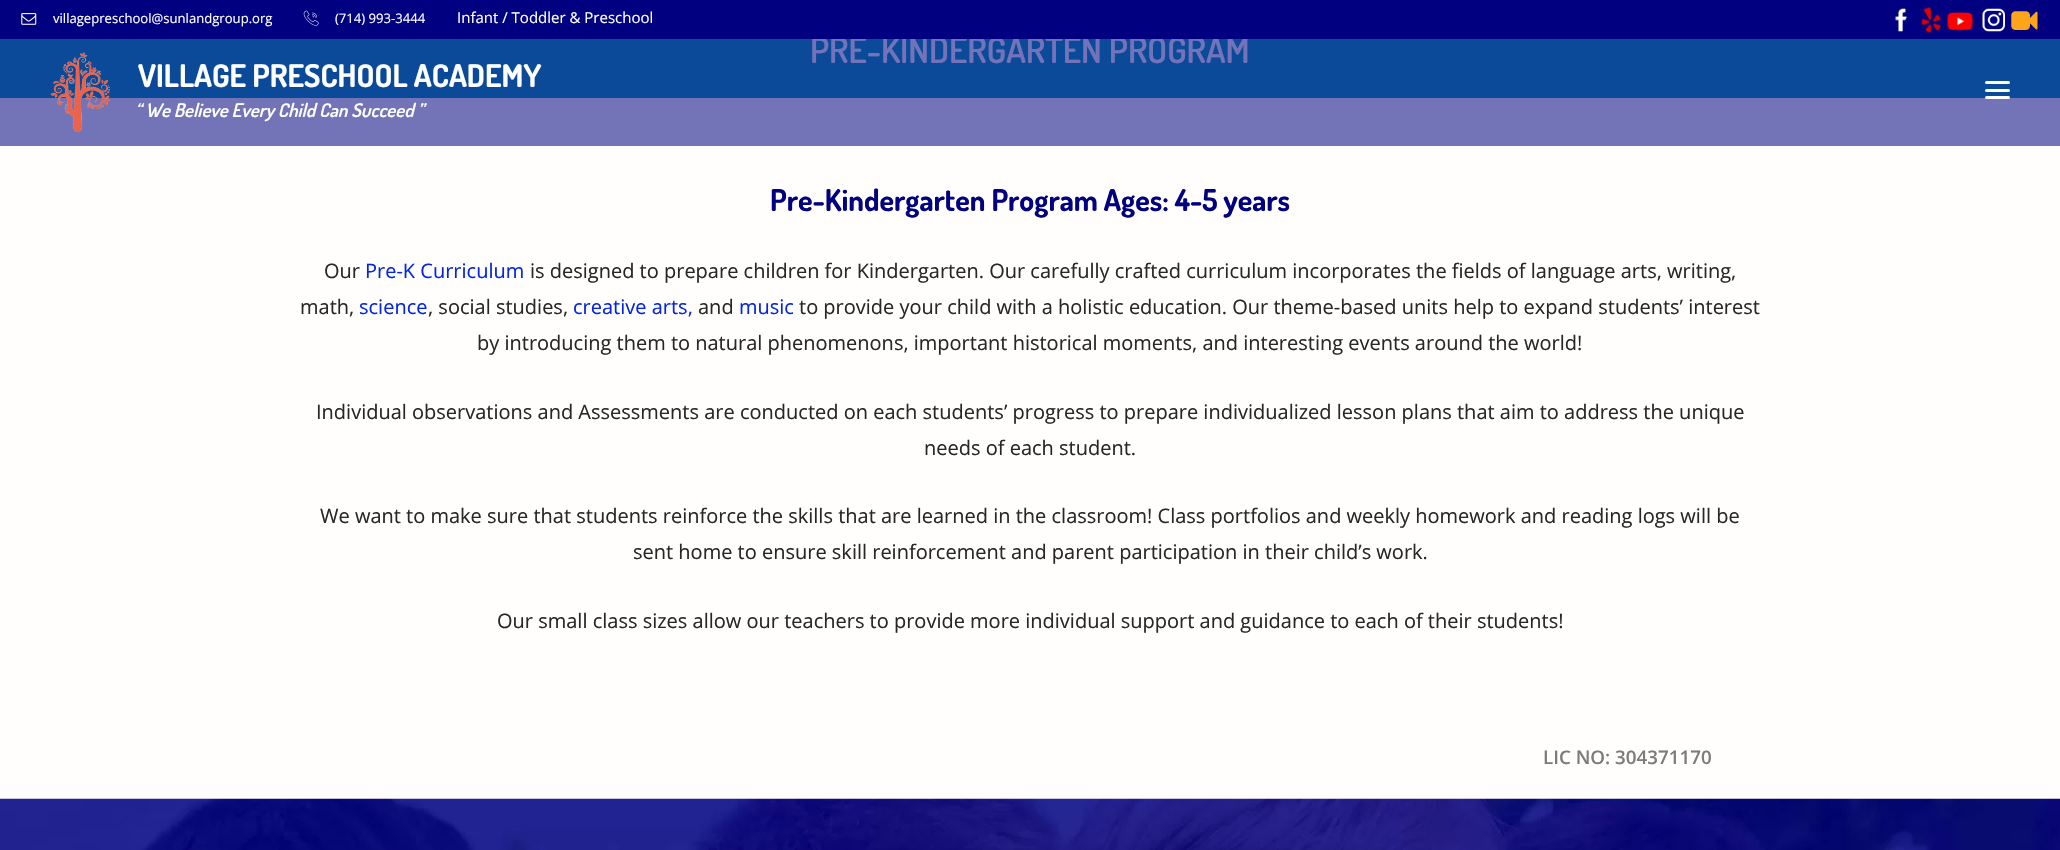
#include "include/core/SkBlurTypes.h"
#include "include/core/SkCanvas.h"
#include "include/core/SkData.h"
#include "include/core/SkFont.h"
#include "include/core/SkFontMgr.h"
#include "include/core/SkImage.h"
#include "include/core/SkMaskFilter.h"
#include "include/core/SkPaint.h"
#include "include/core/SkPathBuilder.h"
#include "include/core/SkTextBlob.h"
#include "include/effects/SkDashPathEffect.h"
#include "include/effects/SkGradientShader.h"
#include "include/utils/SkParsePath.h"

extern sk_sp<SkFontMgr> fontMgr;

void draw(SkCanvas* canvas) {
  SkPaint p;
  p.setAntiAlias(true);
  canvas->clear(SkColorSetRGB(255, 254, 252));
  p.setColor(SkColorSetRGB(23, 162, 184));
  canvas->drawRect(SkRect::MakeLTRB(0, 39, 2060, 98), p);
  canvas->drawImageRect(SkImages::DeferredFromEncodedData(SkData::MakeFromFileName("images/9.png")), SkRect::MakeLTRB(0, 798, 2060, 850), SkSamplingOptions());
  SkFont font1(fontMgr->matchFamilyStyle("Dosis", SkFontStyle(600, SkFontStyle::kNormal_Width, SkFontStyle::kUpright_Slant)), 35);
  font1.setSubpixel(true);
  p.setColor(SK_ColorWHITE);
  canvas->drawString("PRE-KINDERGARTEN PROGRAM", 810, 63, font1, p);
  p.setColor(SkColorSetARGB(140, 0, 0, 128));
  canvas->drawRect(SkRect::MakeLTRB(0, 39, 2060, 146), p);
  p.setColor(SK_ColorWHITE);
  canvas->drawRoundRect(SkRect::MakeLTRB(1985, 96, 2010, 99), 1.5f, 1.5f, p);
  canvas->drawRoundRect(SkRect::MakeLTRB(1985, 89, 2010, 92), 1.5f, 1.5f, p);
  canvas->drawRoundRect(SkRect::MakeLTRB(1985, 81, 2010, 84), 1.5f, 1.5f, p);
  SkFont font2(fontMgr->matchFamilyStyle("Dosis", SkFontStyle(600, SkFontStyle::kNormal_Width, SkFontStyle::kItalic_Slant)), 18.75f);
  font2.setSubpixel(true);
  canvas->drawString("“ We Believe Every Child Can Succeed ”", 135, 117, font2, p);
  SkFont font3(fontMgr->matchFamilyStyle("Dosis", SkFontStyle::Bold()), 31.25f);
  font3.setSubpixel(true);
  canvas->drawString("VILLAGE PRESCHOOL ACADEMY", 138, 87, font3, p);
  canvas->drawImageRect(SkImages::DeferredFromEncodedData(SkData::MakeFromFileName("images/8.png")), SkRect::MakeLTRB(50, 52, 110, 132), SkSamplingOptions());
  p.setColor(SkColorSetRGB(0, 0, 128));
  canvas->drawRect(SkRect::MakeLTRB(0, 0, 2060, 39), p);
  canvas->drawImageRect(SkImages::DeferredFromEncodedData(SkData::MakeFromFileName("images/5.png")), SkRect::MakeLTRB(1947, 11, 1973, 31), SkSamplingOptions());
  canvas->drawImageRect(SkImages::DeferredFromEncodedData(SkData::MakeFromFileName("images/7.png")), SkRect::MakeLTRB(2011, 11, 2038, 30), SkSamplingOptions());
  canvas->drawImageRect(SkImages::DeferredFromEncodedData(SkData::MakeFromFileName("images/6.png")), SkRect::MakeLTRB(1982, 8, 2005, 32), SkSamplingOptions());
  canvas->drawImageRect(SkImages::DeferredFromEncodedData(SkData::MakeFromFileName("images/4.png")), SkRect::MakeLTRB(1921, 7, 1941, 33), SkSamplingOptions());
  canvas->drawImageRect(SkImages::DeferredFromEncodedData(SkData::MakeFromFileName("images/3.png")), SkRect::MakeLTRB(1895, 8, 1907, 32), SkSamplingOptions());
  SkFont font4(fontMgr->matchFamilyStyle("Open Sans", SkFontStyle::Normal()), 15);
  font4.setSubpixel(true);
  p.setColor(SK_ColorWHITE);
  canvas->drawString("Infant / Toddler & Preschool", 457, 23, font4, p);
  SkFont font5(fontMgr->matchFamilyStyle("Open Sans", SkFontStyle::Normal()), 13.1f);
  font5.setSubpixel(true);
  canvas->drawString("(714) 993-3444", 335, 23, font5, p);
  canvas->drawImageRect(SkImages::DeferredFromEncodedData(SkData::MakeFromFileName("images/2.png")), SkRect::MakeLTRB(303, 10, 319, 26), SkSamplingOptions());
  canvas->drawString("villagepreschool@sunlandgroup.org", 53, 23, font5, p);
  canvas->drawImageRect(SkImages::DeferredFromEncodedData(SkData::MakeFromFileName("images/1.png")), SkRect::MakeLTRB(21, 13, 37, 25), SkSamplingOptions());
  SkFont font6(fontMgr->matchFamilyStyle("Dosis", SkFontStyle::Bold()), 30);
  font6.setSubpixel(true);
  p.setColor(SkColorSetRGB(0, 0, 128));
  canvas->drawString("Pre-Kindergarten Program Ages: 4-5 years", 770, 211, font6, p);
  SkFont font7(fontMgr->matchFamilyStyle("Open Sans", SkFontStyle::Normal()), 20);
  font7.setSubpixel(true);
  p.setColor(SkColorSetRGB(39, 39, 39));
  canvas->drawString("Our", 324, 278, font7, p);
  p.setColor(SkColorSetRGB(4, 38, 226));
  canvas->drawString("Pre-K Curriculum", 365, 278, font7, p);
  p.setColor(SkColorSetRGB(39, 39, 39));
  canvas->drawString("is designed to prepare children for Kindergarten. Our carefully crafted curriculum incorporates the fields of language arts, writing,", 530, 278, font7, p);
  canvas->drawString("math,", 300, 314, font7, p);
  p.setColor(SkColorSetRGB(4, 38, 226));
  canvas->drawString("science", 359, 314, font7, p);
  p.setColor(SkColorSetRGB(39, 39, 39));
  canvas->drawString(", social studies,", 428, 314, font7, p);
  p.setColor(SkColorSetRGB(4, 38, 226));
  canvas->drawString("creative arts,", 573, 314, font7, p);
  p.setColor(SkColorSetRGB(39, 39, 39));
  canvas->drawString("and", 698, 314, font7, p);
  p.setColor(SkColorSetRGB(4, 38, 226));
  canvas->drawString("music", 739, 314, font7, p);
  p.setColor(SkColorSetRGB(39, 39, 39));
  canvas->drawString("to provide your child with a holistic education. Our theme-based units help to expand students’ interest", 799, 314, font7, p);
  canvas->drawString("by introducing them to natural phenomenons, important historical moments, and interesting events around the world!", 477, 350, font7, p);
  canvas->drawString("Individual observations and Assessments are conducted on each students’ progress to prepare individualized lesson plans that aim to address the unique", 316, 419, font7, p);
  canvas->drawString("needs of each student.", 924, 455, font7, p);
  canvas->drawString("We want to make sure that students reinforce the skills that are learned in the classroom! Class portfolios and weekly homework and reading logs will be", 320, 523, font7, p);
  canvas->drawString("sent home to ensure skill reinforcement and parent participation in their child’s work.", 633, 559, font7, p);
  canvas->drawString("Our small class sizes allow our teachers to provide more individual support and guidance to each of their students!", 497, 628, font7, p);
  SkFont font8(fontMgr->matchFamilyStyle("Open Sans", SkFontStyle(600, SkFontStyle::kNormal_Width, SkFontStyle::kUpright_Slant)), 18.75f);
  font8.setSubpixel(true);
  p.setColor(SkColorSetRGB(124, 124, 124));
  canvas->drawString("LIC NO: 304371170", 1543, 764, font8, p);
}
